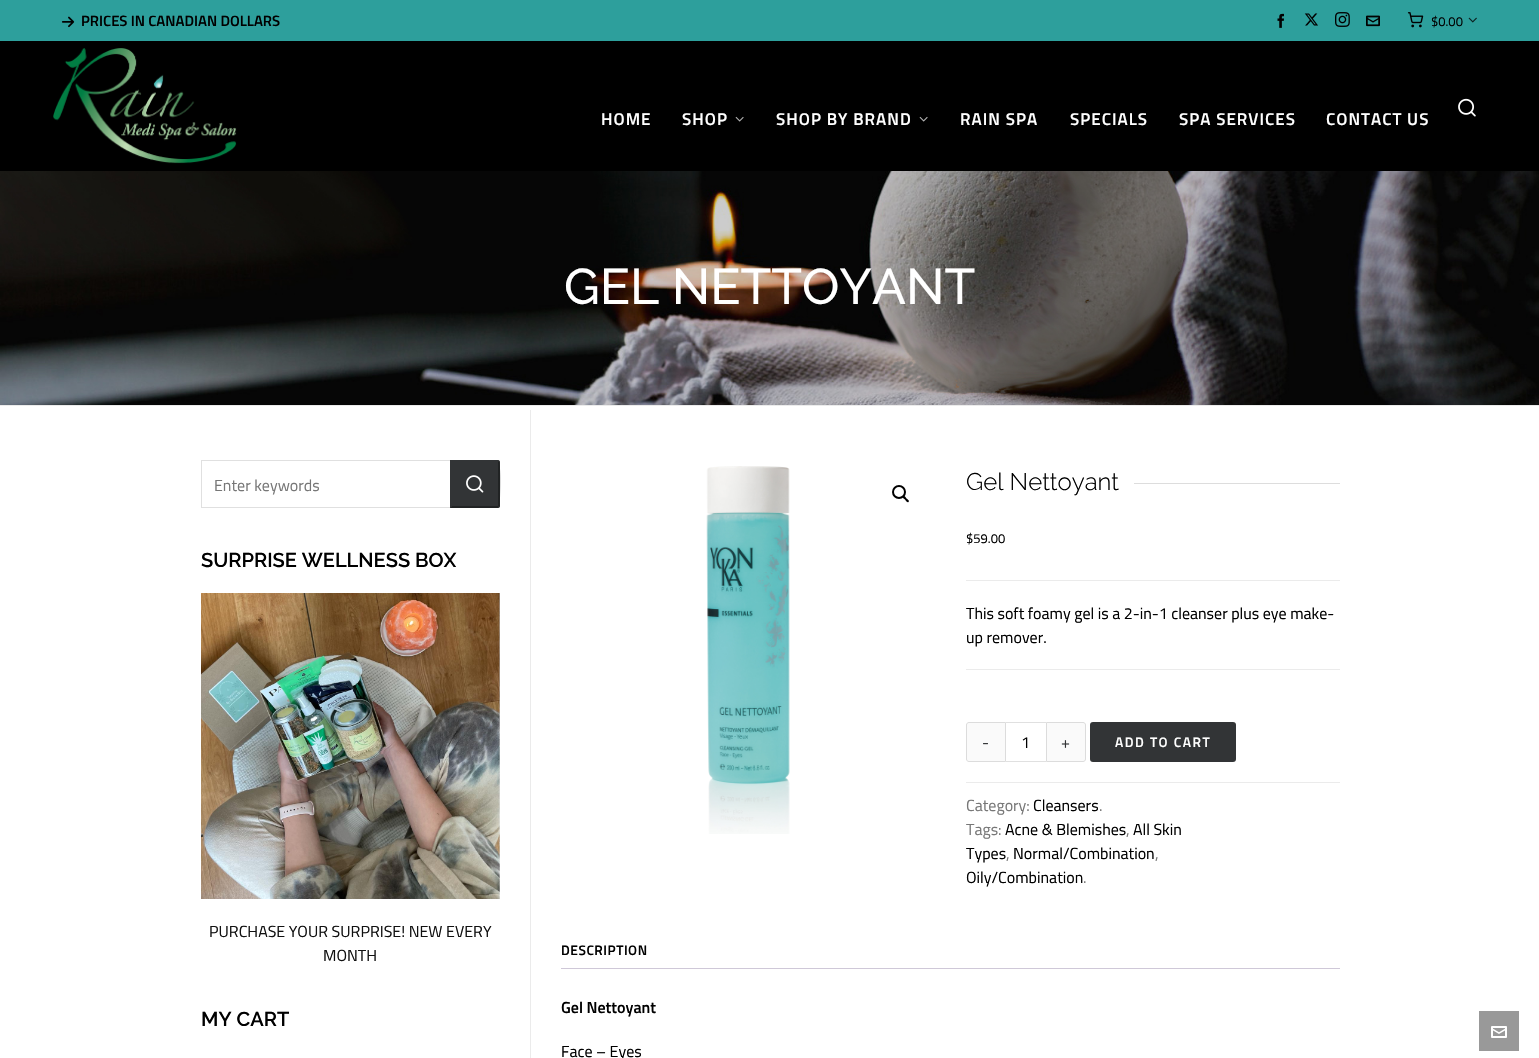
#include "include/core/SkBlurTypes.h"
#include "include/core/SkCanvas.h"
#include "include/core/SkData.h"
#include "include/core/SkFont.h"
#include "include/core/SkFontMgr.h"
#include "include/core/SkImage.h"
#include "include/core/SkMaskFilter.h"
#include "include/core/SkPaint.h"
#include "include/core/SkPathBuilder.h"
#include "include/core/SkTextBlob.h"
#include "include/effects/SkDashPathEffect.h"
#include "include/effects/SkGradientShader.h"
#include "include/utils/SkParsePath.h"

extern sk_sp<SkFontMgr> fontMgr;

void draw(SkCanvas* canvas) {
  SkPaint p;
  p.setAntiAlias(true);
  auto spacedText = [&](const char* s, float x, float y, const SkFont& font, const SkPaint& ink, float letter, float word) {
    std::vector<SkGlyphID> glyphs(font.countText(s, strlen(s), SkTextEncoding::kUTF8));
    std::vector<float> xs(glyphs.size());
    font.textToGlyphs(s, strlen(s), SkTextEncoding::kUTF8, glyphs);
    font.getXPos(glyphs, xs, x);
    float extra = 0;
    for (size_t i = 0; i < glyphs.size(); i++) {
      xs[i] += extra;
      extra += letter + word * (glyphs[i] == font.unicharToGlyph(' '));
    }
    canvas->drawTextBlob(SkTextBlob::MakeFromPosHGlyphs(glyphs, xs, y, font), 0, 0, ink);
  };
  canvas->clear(SK_ColorWHITE);
  p.setColor(SkColorSetRGB(45, 159, 156));
  canvas->drawRect(SkRect::MakeLTRB(0, 0, 1539, 41), p);
  canvas->drawImageRect(SkImages::DeferredFromEncodedData(SkData::MakeFromFileName("images/1.png")), SkRect::MakeLTRB(61, 16, 75, 28), SkSamplingOptions());
  canvas->drawImageRect(SkImages::DeferredFromEncodedData(SkData::MakeFromFileName("images/2.png")), SkRect::MakeLTRB(1277, 13, 1284, 28), SkSamplingOptions());
  canvas->drawImageRect(SkImages::DeferredFromEncodedData(SkData::MakeFromFileName("images/3.png")), SkRect::MakeLTRB(1304, 13, 1318, 26), SkSamplingOptions());
  canvas->drawImageRect(SkImages::DeferredFromEncodedData(SkData::MakeFromFileName("images/4.png")), SkRect::MakeLTRB(1335, 12, 1350, 27), SkSamplingOptions());
  canvas->drawImageRect(SkImages::DeferredFromEncodedData(SkData::MakeFromFileName("images/5.png")), SkRect::MakeLTRB(1366, 15, 1380, 27), SkSamplingOptions());
  canvas->drawImageRect(SkImages::DeferredFromEncodedData(SkData::MakeFromFileName("images/6.png")), SkRect::MakeLTRB(1407, 12, 1424, 28), SkSamplingOptions());
  canvas->drawImageRect(SkImages::DeferredFromEncodedData(SkData::MakeFromFileName("images/7.png")), SkRect::MakeLTRB(1468, 17, 1477, 23), SkSamplingOptions());
  p.setColor(SK_ColorBLACK);
  canvas->drawRect(SkRect::MakeLTRB(0, 41, 1539, 171), p);
  canvas->drawImageRect(SkImages::DeferredFromEncodedData(SkData::MakeFromFileName("images/8.png")), SkRect::MakeLTRB(53, 48, 237, 164), SkSamplingOptions());
  canvas->drawImageRect(SkImages::DeferredFromEncodedData(SkData::MakeFromFileName("images/9.png")), SkRect::MakeLTRB(1458, 98, 1476, 117), SkSamplingOptions());
  canvas->drawImageRect(SkImages::DeferredFromEncodedData(SkData::MakeFromFileName("images/10.png")), SkRect::MakeLTRB(735, 116, 744, 122), SkSamplingOptions());
  canvas->drawImageRect(SkImages::DeferredFromEncodedData(SkData::MakeFromFileName("images/10.png")), SkRect::MakeLTRB(919, 116, 928, 122), SkSamplingOptions());
  p.setColor(SkColorSetRGB(235, 235, 235));
  canvas->drawRect(SkRect::MakeLTRB(0, 405, 1539, 406), p);
  canvas->drawImageRect(SkImages::DeferredFromEncodedData(SkData::MakeFromFileName("images/11.png")), SkRect::MakeLTRB(0, 171, 1539, 405), SkSamplingOptions());
  p.setStyle(SkPaint::kStroke_Style);
  p.setStrokeWidth(1);
  p.setColor(SkColorSetRGB(224, 224, 224));
  canvas->drawRect(SkRect::MakeLTRB(201.5f, 460.5f, 499.5f, 507.5f), p);
  p.setStyle(SkPaint::kFill_Style);
  p.setColor(SkColorSetRGB(50, 52, 54));
  canvas->drawPath(SkPathBuilder().moveTo(450, 460).lineTo(498, 460).cubicTo(499, 460, 500, 461, 500, 462).lineTo(500, 506).cubicTo(500, 507, 499, 508, 498, 508).lineTo(450, 508).close().detach(), p);
  canvas->drawPath(SkPathBuilder().moveTo(450, 460).lineTo(452, 462).lineTo(498, 462).lineTo(499, 461).lineTo(498, 460).close().detach(), p);
  p.setColor(SkColorSetRGB(33, 35, 36));
  canvas->drawPath(SkPathBuilder().moveTo(500, 506).cubicTo(500, 501, 501, 462, 499, 461).lineTo(498, 462).lineTo(498, 506).lineTo(499, 507).close().detach(), p);
  canvas->drawPath(SkPathBuilder().moveTo(498, 508).lineTo(499, 507).lineTo(498, 506).lineTo(452, 506).lineTo(450, 508).close().detach(), p);
  p.setColor(SkColorSetRGB(50, 52, 54));
  canvas->drawPath(SkPathBuilder().moveTo(450, 460).lineTo(450, 508).lineTo(452, 506).lineTo(452, 462).close().detach(), p);
  canvas->drawImageRect(SkImages::DeferredFromEncodedData(SkData::MakeFromFileName("images/12.png")), SkRect::MakeLTRB(466, 475, 484, 493), SkSamplingOptions());
  canvas->drawImageRect(SkImages::DeferredFromEncodedData(SkData::MakeFromFileName("images/13.png")), SkRect::MakeLTRB(201, 593, 500, 899), SkSamplingOptions());
  p.setColor(SkColorSetRGB(235, 235, 235));
  canvas->drawRect(SkRect::MakeLTRB(530, 410, 531, 1058), p);
  canvas->drawImageRect(SkImages::DeferredFromEncodedData(SkData::MakeFromFileName("images/14.png")), SkRect::MakeLTRB(706, 466, 790, 834), SkSamplingOptions());
  p.setStyle(SkPaint::kStroke_Style);
  p.setStrokeWidth(2);
  p.setColor(SK_ColorBLACK);
  canvas->drawCircle(899, 492, 6, p);
  p.setStyle(SkPaint::kFill_Style);
  canvas->drawPath(SkPathBuilder().moveTo(903, 496).cubicTo(904, 495, 906, 497.5f, 906.5f, 498.5f).cubicTo(907, 499, 910, 500.5f, 908.5f, 502).cubicTo(907.5f, 503, 905.5f, 500.5f, 905, 499.5f).cubicTo(904.5f, 499, 901.5f, 497.5f, 903, 496).close().detach(), p);
  p.setColor(SkColorSetRGB(221, 221, 221));
  canvas->drawRect(SkRect::MakeLTRB(1134, 483, 1340, 484), p);
  p.setColor(SkColorSetRGB(235, 235, 235));
  canvas->drawRect(SkRect::MakeLTRB(966, 580, 1340, 581), p);
  canvas->drawRect(SkRect::MakeLTRB(966, 669, 1340, 670), p);
  p.setColor(SkColorSetRGB(250, 250, 250));
  canvas->drawPath(SkPathBuilder().moveTo(969, 722.5f).lineTo(1005.5f, 722.5f).lineTo(1005.5f, 761.5f).lineTo(969, 761.5f).cubicTo(967.5f, 761.5f, 966.5f, 760.5f, 966.5f, 759).lineTo(966.5f, 725).cubicTo(966.5f, 723.5f, 967.5f, 722.5f, 969, 722.5f).close().detach(), p);
  p.setStyle(SkPaint::kStroke_Style);
  p.setStrokeWidth(1);
  p.setColor(SkColorSetRGB(220, 220, 220));
  canvas->drawPath(SkPathBuilder().moveTo(969, 722.5f).lineTo(1005.5f, 722.5f).lineTo(1005.5f, 761.5f).lineTo(969, 761.5f).cubicTo(967.5f, 761.5f, 966.5f, 760.5f, 966.5f, 759).lineTo(966.5f, 725).cubicTo(966.5f, 723.5f, 967.5f, 722.5f, 969, 722.5f).close().detach(), p);
  p.setStyle(SkPaint::kFill_Style);
  p.setColor(SkColorSetRGB(224, 224, 224));
  canvas->drawRect(SkRect::MakeLTRB(1006, 722, 1046, 723), p);
  canvas->drawRect(SkRect::MakeLTRB(1006, 761, 1046, 762), p);
  p.setColor(SkColorSetRGB(250, 250, 250));
  canvas->drawPath(SkPathBuilder().moveTo(1046.5f, 722.5f).lineTo(1083, 722.5f).cubicTo(1084.5f, 722.5f, 1085.5f, 723.5f, 1085.5f, 725).lineTo(1085.5f, 759).cubicTo(1085.5f, 760.5f, 1084.5f, 761.5f, 1083, 761.5f).lineTo(1046.5f, 761.5f).close().detach(), p);
  p.setStyle(SkPaint::kStroke_Style);
  p.setColor(SkColorSetRGB(220, 220, 220));
  canvas->drawPath(SkPathBuilder().moveTo(1046.5f, 722.5f).lineTo(1083, 722.5f).cubicTo(1084.5f, 722.5f, 1085.5f, 723.5f, 1085.5f, 725).lineTo(1085.5f, 759).cubicTo(1085.5f, 760.5f, 1084.5f, 761.5f, 1083, 761.5f).lineTo(1046.5f, 761.5f).close().detach(), p);
  p.setStyle(SkPaint::kFill_Style);
  p.setColor(SkColorSetRGB(50, 52, 54));
  canvas->drawRoundRect(SkRect::MakeLTRB(1090, 722, 1236, 762), 3, 3, p);
  p.setColor(SkColorSetRGB(235, 235, 235));
  canvas->drawRect(SkRect::MakeLTRB(966, 782, 1340, 783), p);
  p.setColor(SkColorSetRGB(207, 200, 216));
  canvas->drawRect(SkRect::MakeLTRB(561, 968, 1340, 969), p);
  p.setColor(SkColorSetRGB(153, 153, 153));
  canvas->drawRect(SkRect::MakeLTRB(1479, 1011, 1519, 1051), p);
  canvas->drawImageRect(SkImages::DeferredFromEncodedData(SkData::MakeFromFileName("images/15.png")), SkRect::MakeLTRB(1491, 1026, 1507, 1038), SkSamplingOptions());
  SkFont font1(fontMgr->matchFamilyStyle("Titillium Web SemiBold", SkFontStyle(600, SkFontStyle::kNormal_Width, SkFontStyle::kUpright_Slant)), 14.9f);
  font1.setSubpixel(true);
  p.setColor(SK_ColorBLACK);
  canvas->drawString("PRICES IN CANADIAN DOLLARS", 81, 26, font1, p);
  SkFont font2(fontMgr->matchFamilyStyle("Titillium Web", SkFontStyle::Normal()), 13);
  font2.setSubpixel(true);
  canvas->drawString("$0.00", 1431, 26, font2, p);
  SkFont font3(fontMgr->matchFamilyStyle("Titillium Web SemiBold", SkFontStyle(600, SkFontStyle::kNormal_Width, SkFontStyle::kUpright_Slant)), 17);
  font3.setSubpixel(true);
  p.setColor(SK_ColorWHITE);
  spacedText("HOME", 601, 125, font3, p, 1, 0);
  spacedText("SHOP", 682, 125, font3, p, 1, 0);
  spacedText("SHOP BY BRAND", 776, 125, font3, p, 1, 0);
  spacedText("RAIN SPA", 960, 125, font3, p, 1, 0);
  spacedText("SPECIALS", 1070, 125, font3, p, 1, 0);
  spacedText("SPA SERVICES", 1179, 125, font3, p, 1, 0);
  spacedText("CONTACT US", 1326, 125, font3, p, 1, 0);
  SkFont font4(fontMgr->matchFamilyStyle("Raleway", SkFontStyle(500, SkFontStyle::kNormal_Width, SkFontStyle::kUpright_Slant)), 50);
  font4.setSubpixel(true);
  canvas->drawString("GEL NETTOYANT", 564, 304, font4, p);
  SkFont font5(fontMgr->matchFamilyStyle("Titillium Web", SkFontStyle::Normal()), 16);
  font5.setSubpixel(true);
  p.setColor(SkColorSetRGB(119, 119, 119));
  canvas->drawString("Enter keywords", 214, 491, font5, p);
  SkFont font6(fontMgr->matchFamilyStyle("Raleway", SkFontStyle(600, SkFontStyle::kNormal_Width, SkFontStyle::kUpright_Slant)), 20);
  font6.setSubpixel(true);
  p.setColor(SK_ColorBLACK);
  canvas->drawString("SURPRISE WELLNESS BOX", 201, 567, font6, p);
  p.setColor(SkColorSetRGB(17, 17, 17));
  canvas->drawString("PURCHASE YOUR SURPRISE! NEW EVERY", 209, 937, font5, p);
  canvas->drawString("MONTH", 323, 961, font5, p);
  p.setColor(SK_ColorBLACK);
  canvas->drawString("MY CART", 201, 1026, font6, p);
  SkFont font7(fontMgr->matchFamilyStyle("Raleway", SkFontStyle(300, SkFontStyle::kNormal_Width, SkFontStyle::kUpright_Slant)), 24);
  font7.setSubpixel(true);
  canvas->drawString("Gel Nettoyant", 966, 490, font7, p);
  canvas->drawString("$59.00", 966, 543, font2, p);
  canvas->drawString("This soft foamy gel is a 2-in-1 cleanser plus eye make-", 966, 619, font5, p);
  canvas->drawString("up remover.", 966, 643, font5, p);
  p.setColor(SkColorSetRGB(50, 52, 54));
  canvas->drawString("-", 982, 748, font5, p);
  p.setColor(SK_ColorBLACK);
  canvas->drawString("1", 1021, 748, font5, p);
  p.setColor(SkColorSetRGB(50, 52, 54));
  canvas->drawString("+", 1061, 748, font5, p);
  SkFont font8(fontMgr->matchFamilyStyle("Titillium Web SemiBold", SkFontStyle(600, SkFontStyle::kNormal_Width, SkFontStyle::kUpright_Slant)), 13.75f);
  font8.setSubpixel(true);
  p.setColor(SK_ColorWHITE);
  spacedText("ADD TO CART", 1115, 747, font8, p, 1.5f, 0);
  p.setColor(SkColorSetRGB(119, 119, 119));
  canvas->drawString("Category:", 966, 811, font5, p);
  p.setColor(SK_ColorBLACK);
  canvas->drawString("Cleansers", 1033, 811, font5, p);
  p.setColor(SkColorSetRGB(119, 119, 119));
  canvas->drawString(".", 1099, 811, font5, p);
  canvas->drawString("Tags:", 966, 835, font5, p);
  p.setColor(SK_ColorBLACK);
  canvas->drawString("Acne & Blemishes", 1005, 835, font5, p);
  p.setColor(SkColorSetRGB(119, 119, 119));
  canvas->drawString(",", 1126, 835, font5, p);
  p.setColor(SK_ColorBLACK);
  canvas->drawString("All Skin", 1133, 835, font5, p);
  canvas->drawString("Types", 966, 859, font5, p);
  p.setColor(SkColorSetRGB(119, 119, 119));
  canvas->drawString(",", 1006, 859, font5, p);
  p.setColor(SK_ColorBLACK);
  canvas->drawString("Normal/Combination", 1013, 859, font5, p);
  p.setColor(SkColorSetRGB(119, 119, 119));
  canvas->drawString(",", 1155, 859, font5, p);
  p.setColor(SK_ColorBLACK);
  canvas->drawString("Oily/Combination", 966, 883, font5, p);
  p.setColor(SkColorSetRGB(119, 119, 119));
  canvas->drawString(".", 1083, 883, font5, p);
  p.setColor(SK_ColorBLACK);
  spacedText("DESCRIPTION", 561, 955, font8, p, 0.5f, 0);
  SkFont font9(fontMgr->matchFamilyStyle("Titillium Web SemiBold", SkFontStyle(600, SkFontStyle::kNormal_Width, SkFontStyle::kUpright_Slant)), 16);
  font9.setSubpixel(true);
  canvas->drawString("Gel Nettoyant", 561, 1013, font9, p);
  canvas->drawString("Face – Eyes", 561, 1057, font5, p);
}
